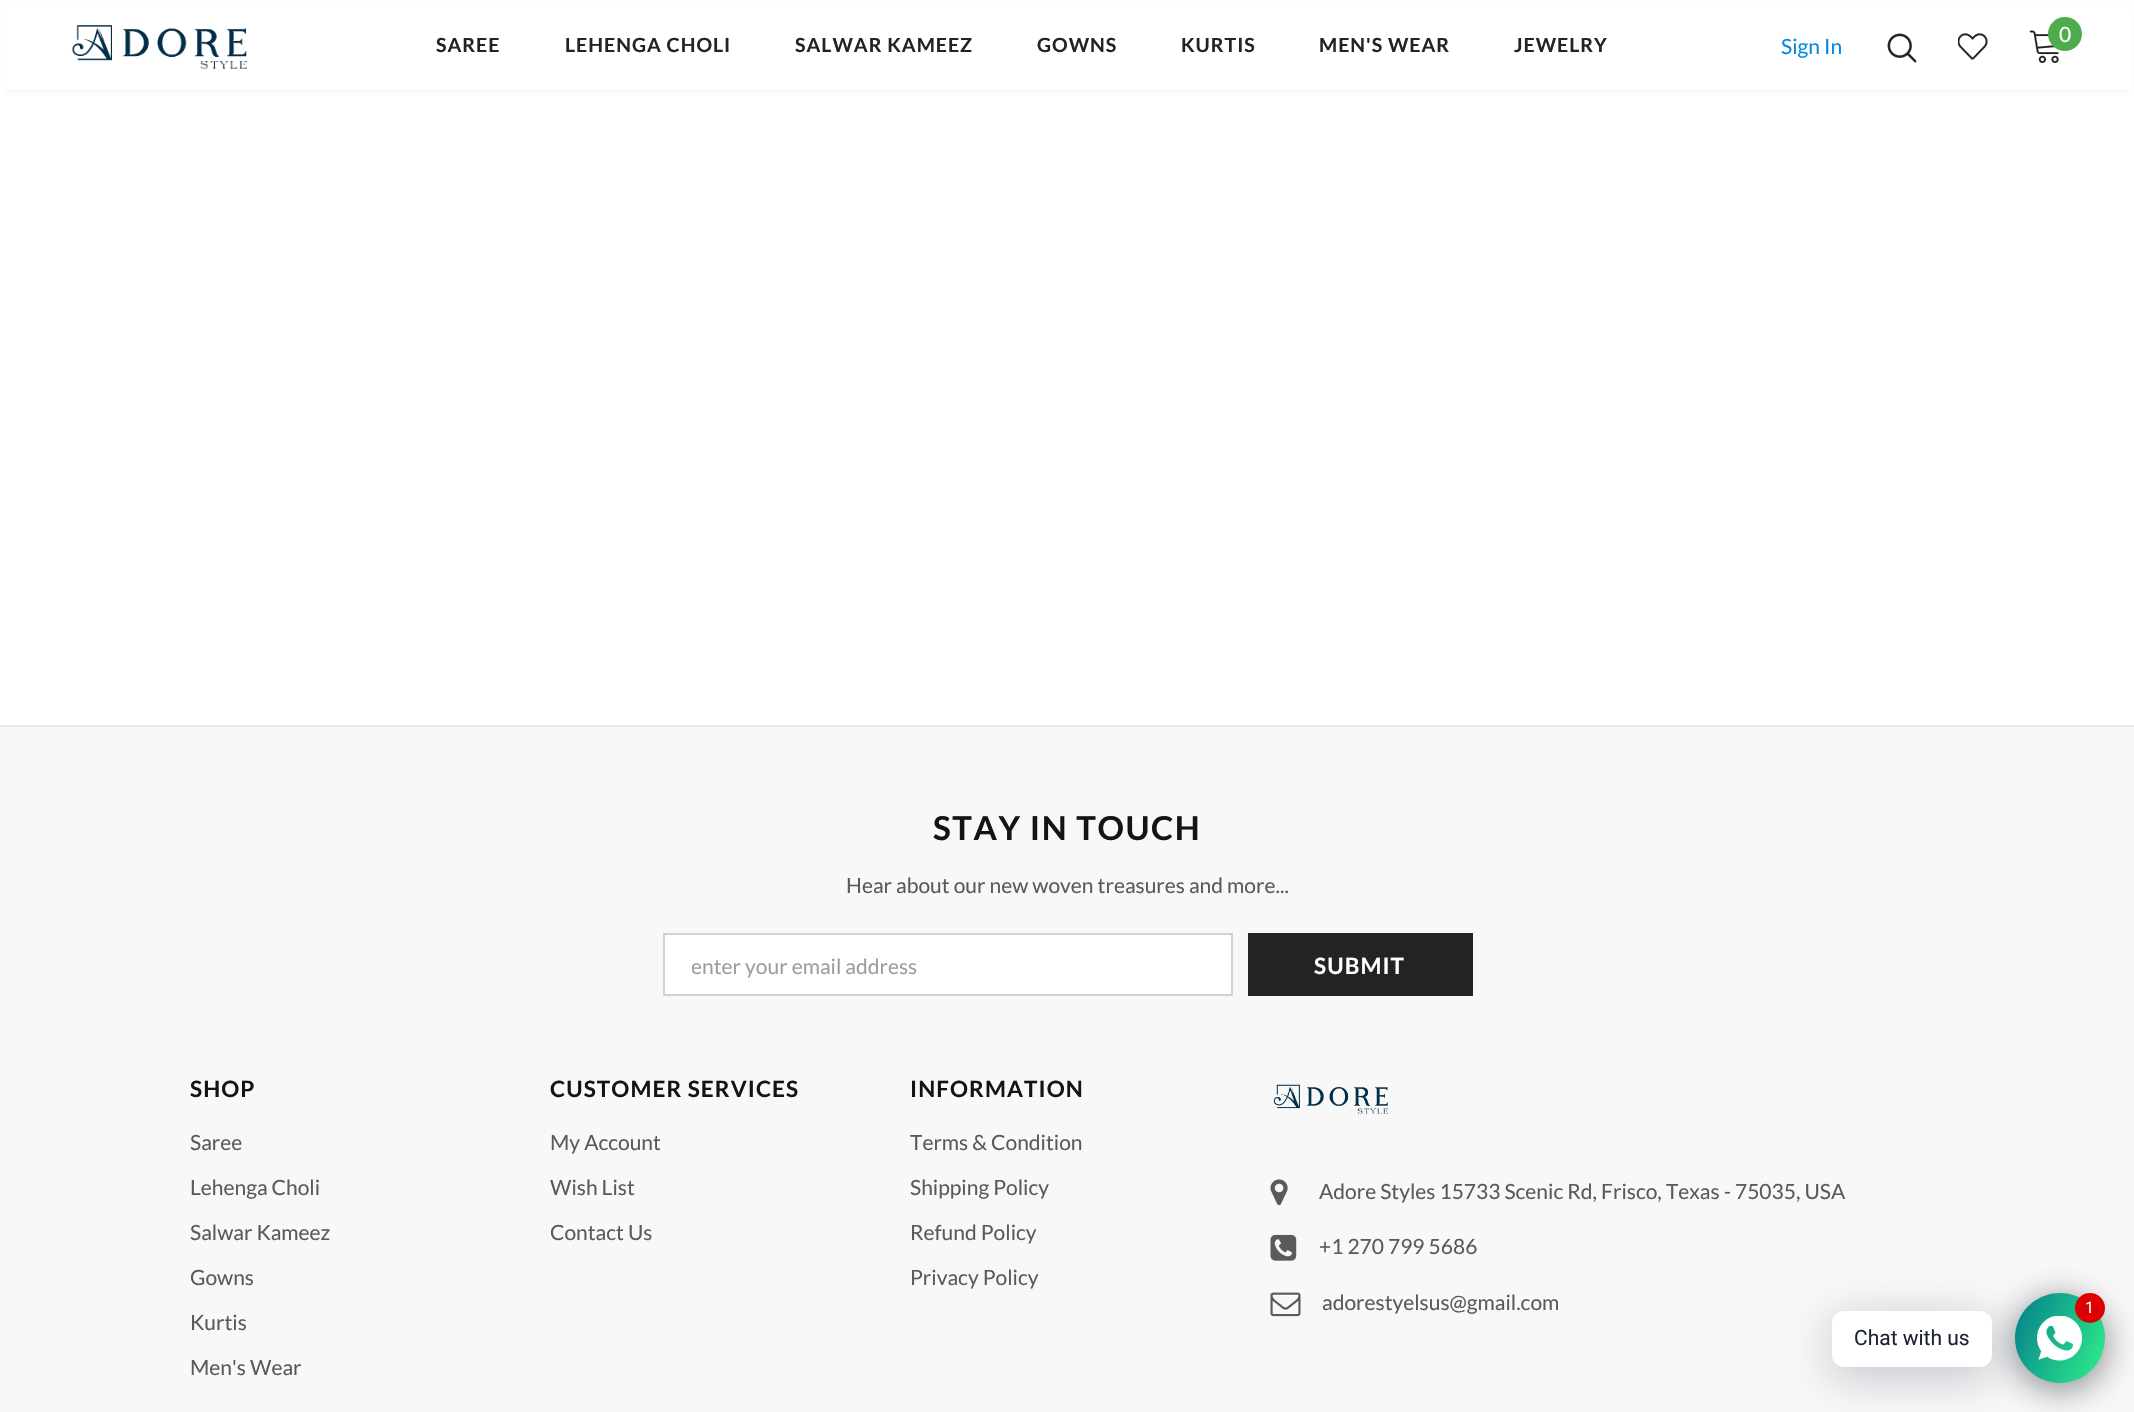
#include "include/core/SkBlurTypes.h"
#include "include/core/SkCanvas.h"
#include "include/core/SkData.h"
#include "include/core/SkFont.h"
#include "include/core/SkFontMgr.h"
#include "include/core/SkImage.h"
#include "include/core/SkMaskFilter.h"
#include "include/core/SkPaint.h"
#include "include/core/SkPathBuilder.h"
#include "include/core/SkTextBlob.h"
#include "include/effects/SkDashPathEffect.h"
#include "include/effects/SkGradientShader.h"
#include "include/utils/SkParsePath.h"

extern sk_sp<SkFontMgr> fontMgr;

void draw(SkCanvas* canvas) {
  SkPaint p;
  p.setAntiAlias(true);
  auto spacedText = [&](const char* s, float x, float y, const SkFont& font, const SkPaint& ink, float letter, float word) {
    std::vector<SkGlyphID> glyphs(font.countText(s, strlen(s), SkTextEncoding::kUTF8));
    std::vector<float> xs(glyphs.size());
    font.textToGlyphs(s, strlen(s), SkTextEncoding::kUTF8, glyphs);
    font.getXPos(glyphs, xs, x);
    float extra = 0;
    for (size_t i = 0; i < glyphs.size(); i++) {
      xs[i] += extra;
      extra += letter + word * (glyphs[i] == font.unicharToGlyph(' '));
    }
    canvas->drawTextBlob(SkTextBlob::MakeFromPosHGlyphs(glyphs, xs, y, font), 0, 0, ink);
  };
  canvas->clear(SK_ColorWHITE);
  p.setColor(SkColorSetARGB(26, 0, 0, 0));
  p.setMaskFilter(SkMaskFilter::MakeBlur(kNormal_SkBlurStyle, 2));
  canvas->drawRect(SkRect::MakeLTRB(5, 9, 2130, 90), p);
  p.setMaskFilter(nullptr);
  p.setColor(SK_ColorWHITE);
  canvas->drawRect(SkRect::MakeLTRB(2, 6, 2133, 90), p);
  canvas->drawImageRect(SkImages::DeferredFromEncodedData(SkData::MakeFromFileName("images/1.png")), SkRect::MakeLTRB(71, 25, 247, 69), SkSamplingOptions());
  canvas->drawImageRect(SkImages::DeferredFromEncodedData(SkData::MakeFromFileName("images/2.png")), SkRect::MakeLTRB(1887, 33, 1917, 63), SkSamplingOptions());
  canvas->drawImageRect(SkImages::DeferredFromEncodedData(SkData::MakeFromFileName("images/3.png")), SkRect::MakeLTRB(1958, 33, 1988, 60), SkSamplingOptions());
  canvas->drawImageRect(SkImages::DeferredFromEncodedData(SkData::MakeFromFileName("images/4.png")), SkRect::MakeLTRB(2029, 30, 2059, 63), SkSamplingOptions());
  p.setColor(SkColorSetRGB(77, 172, 76));
  canvas->drawCircle(2065, 34, 17, p);
  p.setColor(SkColorSetRGB(248, 248, 248));
  canvas->drawRect(SkRect::MakeLTRB(0, 727, 2134, 1412), p);
  p.setColor(SkColorSetRGB(235, 235, 235));
  canvas->drawRect(SkRect::MakeLTRB(0, 725, 2134, 727), p);
  p.setColor(SK_ColorWHITE);
  canvas->drawRect(SkRect::MakeLTRB(664, 934, 1232, 995), p);
  p.setStyle(SkPaint::kStroke_Style);
  p.setStrokeWidth(2);
  p.setColor(SkColorSetRGB(210, 210, 210));
  canvas->drawRect(SkRect::MakeLTRB(664, 934, 1232, 995), p);
  p.setStyle(SkPaint::kFill_Style);
  p.setColor(SkColorSetRGB(35, 35, 35));
  canvas->drawRect(SkRect::MakeLTRB(1248, 933, 1473, 996), p);
  canvas->drawImageRect(SkImages::DeferredFromEncodedData(SkData::MakeFromFileName("images/5.png")), SkRect::MakeLTRB(1273, 1084, 1388, 1114), SkSamplingOptions());
  canvas->drawImageRect(SkImages::DeferredFromEncodedData(SkData::MakeFromFileName("images/6.png")), SkRect::MakeLTRB(1270, 1179, 1288, 1206), SkSamplingOptions());
  canvas->drawImageRect(SkImages::DeferredFromEncodedData(SkData::MakeFromFileName("images/7.png")), SkRect::MakeLTRB(1270, 1234, 1297, 1261), SkSamplingOptions());
  canvas->drawImageRect(SkImages::DeferredFromEncodedData(SkData::MakeFromFileName("images/8.png")), SkRect::MakeLTRB(1270, 1292, 1301, 1317), SkSamplingOptions());
  p.setColor(SkColorSetARGB(128, 2, 6, 16));
  p.setMaskFilter(SkMaskFilter::MakeBlur(kNormal_SkBlurStyle, 18));
  canvas->drawRoundRect(SkRect::MakeLTRB(2015, 1299, 2105, 1389), 45, 45, p);
  p.setMaskFilter(nullptr);
  {
    const SkColor colors[] = {SkColorSetRGB(4, 124, 141), SkColorSetRGB(47, 242, 137)};
    const float stops[] = {0, 1};
    const SkPoint ends[] = {{2005, 1313}, {2114, 1363}};
    p.setShader(SkGradientShader::MakeLinear(ends, colors, stops, 2, SkTileMode::kClamp));
    p.setAlpha(255);
  }
  canvas->drawCircle(2060, 1338, 45, p);
  p.setShader(nullptr);
  p.setColor(SkColorSetARGB(61, 0, 18, 46));
  p.setMaskFilter(SkMaskFilter::MakeBlur(kNormal_SkBlurStyle, 24));
  canvas->drawRoundRect(SkRect::MakeLTRB(1832, 1320, 1992, 1376), 12, 12, p);
  p.setMaskFilter(nullptr);
  canvas->drawImageRect(SkImages::DeferredFromEncodedData(SkData::MakeFromFileName("images/9.png")), SkRect::MakeLTRB(2037, 1316, 2082, 1361), SkSamplingOptions());
  p.setColor(SkColorSetRGB(221, 0, 0));
  canvas->drawCircle(2090, 1308, 15, p);
  p.setColor(SK_ColorWHITE);
  canvas->drawRoundRect(SkRect::MakeLTRB(1832, 1311, 1992, 1367), 12, 12, p);
  SkFont font1(fontMgr->matchFamilyStyle("Lato", SkFontStyle::Bold()), 19.5f);
  font1.setSubpixel(true);
  p.setColor(SkColorSetRGB(35, 35, 35));
  spacedText("SAREE", 436, 52, font1, p, 1, 0);
  spacedText("LEHENGA CHOLI", 565, 52, font1, p, 1, 0);
  spacedText("SALWAR KAMEEZ", 795, 52, font1, p, 1, 0);
  spacedText("GOWNS", 1037, 52, font1, p, 1, 0);
  spacedText("KURTIS", 1181, 52, font1, p, 1, 0);
  spacedText("MEN'S WEAR", 1319, 52, font1, p, 1, 0);
  spacedText("JEWELRY", 1514, 52, font1, p, 1, 0);
  SkFont font2(fontMgr->matchFamilyStyle("Lato", SkFontStyle::Normal()), 21);
  font2.setSubpixel(true);
  p.setColor(SkColorSetRGB(6, 136, 226));
  canvas->drawString("Sign In", 1781, 54, font2, p);
  p.setColor(SK_ColorWHITE);
  canvas->drawString("0", 2059, 42, font2, p);
  SkFont font3(fontMgr->matchFamilyStyle("Lato", SkFontStyle::Bold()), 33);
  font3.setSubpixel(true);
  p.setColor(SkColorSetRGB(20, 20, 20));
  spacedText("STAY IN TOUCH", 933, 840, font3, p, 1.6f, 0);
  p.setColor(SkColorSetRGB(90, 90, 90));
  canvas->drawString("Hear about our new woven treasures and more...", 846, 893, font2, p);
  canvas->save();
  canvas->clipRect(SkRect::MakeLTRB(692, 953, 1205, 978));
  p.setColor(SkColorSetRGB(157, 157, 157));
  canvas->drawString("enter your email address", 691, 974, font2, p);
  canvas->restore();
  SkFont font4(fontMgr->matchFamilyStyle("Lato", SkFontStyle::Bold()), 22.5f);
  font4.setSubpixel(true);
  p.setColor(SK_ColorWHITE);
  spacedText("SUBMIT", 1314, 974, font4, p, 1.1f, 0);
  p.setColor(SkColorSetRGB(20, 20, 20));
  spacedText("SHOP", 190, 1097, font4, p, 1.1f, 0);
  p.setColor(SkColorSetRGB(90, 90, 90));
  canvas->drawString("Saree", 190, 1150, font2, p);
  canvas->drawString("Lehenga Choli", 190, 1195, font2, p);
  canvas->drawString("Salwar Kameez", 190, 1240, font2, p);
  canvas->drawString("Gowns", 190, 1285, font2, p);
  canvas->drawString("Kurtis", 190, 1330, font2, p);
  canvas->drawString("Men's Wear", 190, 1375, font2, p);
  p.setColor(SkColorSetRGB(20, 20, 20));
  spacedText("CUSTOMER SERVICES", 550, 1097, font4, p, 1.1f, 0);
  p.setColor(SkColorSetRGB(90, 90, 90));
  canvas->drawString("My Account", 550, 1150, font2, p);
  canvas->drawString("Wish List", 550, 1195, font2, p);
  canvas->drawString("Contact Us", 550, 1240, font2, p);
  p.setColor(SkColorSetRGB(20, 20, 20));
  spacedText("INFORMATION", 910, 1097, font4, p, 1.1f, 0);
  p.setColor(SkColorSetRGB(90, 90, 90));
  canvas->drawString("Terms & Condition", 910, 1150, font2, p);
  canvas->drawString("Shipping Policy", 910, 1195, font2, p);
  canvas->drawString("Refund Policy", 910, 1240, font2, p);
  canvas->drawString("Privacy Policy", 910, 1285, font2, p);
  canvas->drawString("Adore Styles 15733 Scenic Rd, Frisco, Texas - 75035, USA", 1319, 1199, font2, p);
  canvas->drawString("+1 270 799 5686", 1319, 1254, font2, p);
  canvas->drawString("adorestyelsus@gmail.com", 1322, 1310, font2, p);
  SkFont font5(fontMgr->matchFamilyStyle("Roboto", SkFontStyle::Normal()), 16);
  font5.setSubpixel(true);
  p.setColor(SK_ColorWHITE);
  canvas->drawString("1", 2085, 1313, font5, p);
  SkFont font6(fontMgr->matchFamilyStyle("Roboto", SkFontStyle::Normal()), 21);
  font6.setSubpixel(true);
  p.setColor(SkColorSetRGB(30, 36, 51));
  canvas->drawString("Chat with us", 1854, 1345, font6, p);
}
